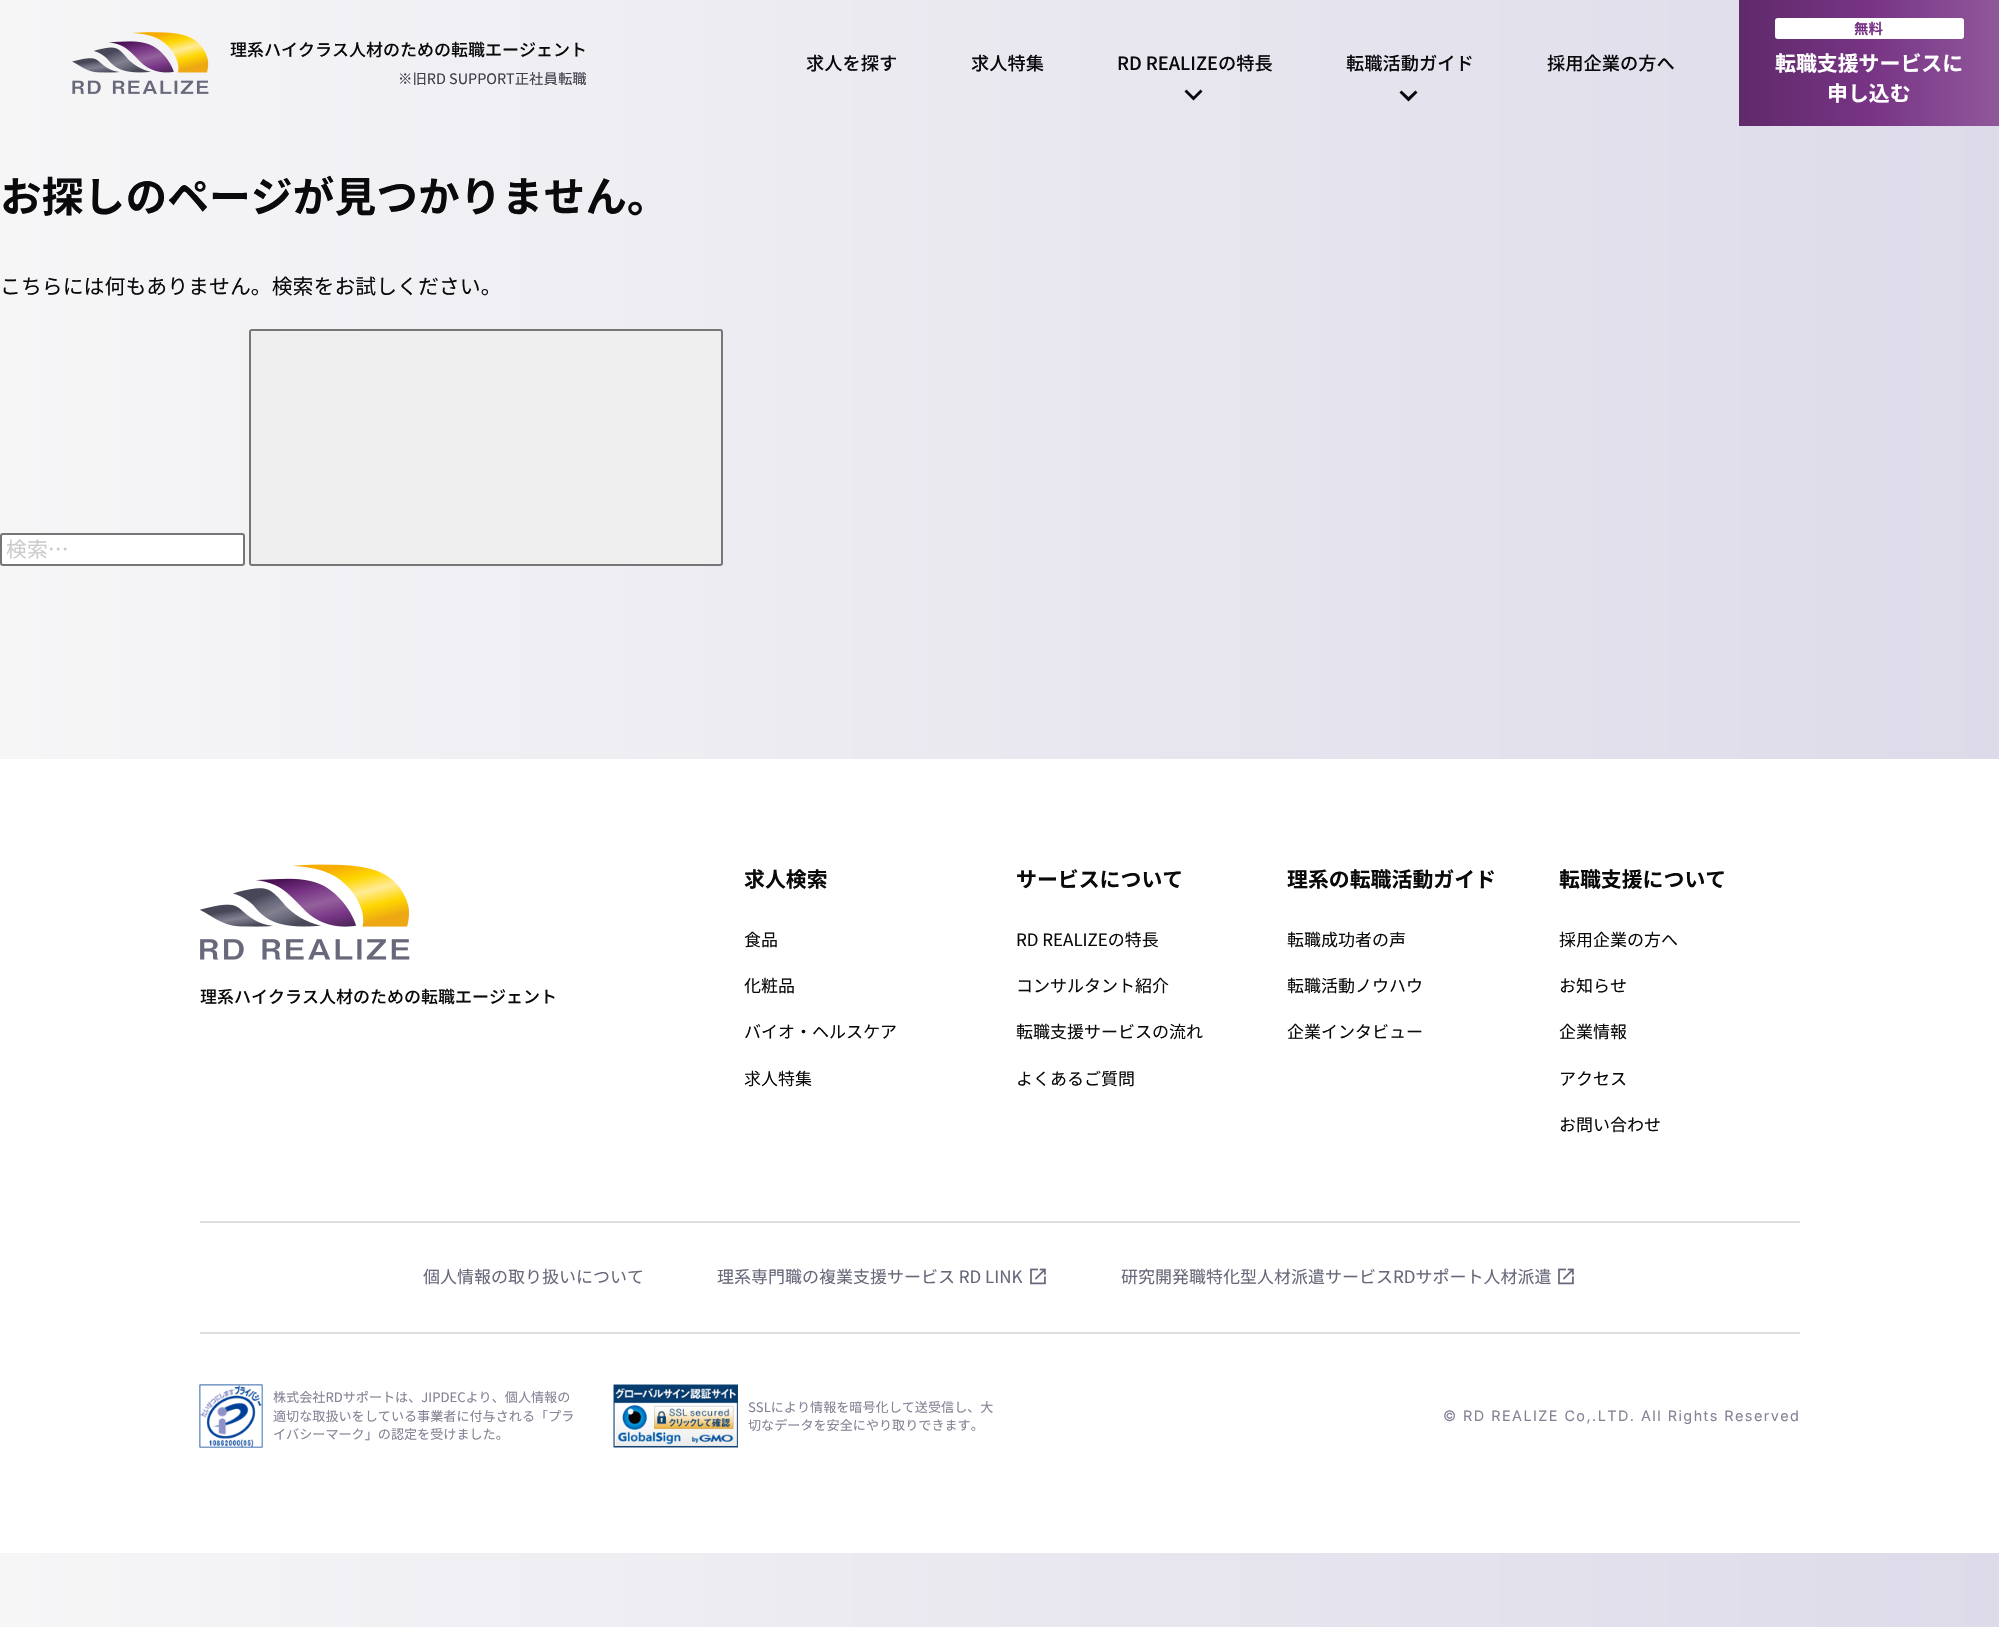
#include "include/core/SkBlurTypes.h"
#include "include/core/SkCanvas.h"
#include "include/core/SkData.h"
#include "include/core/SkFont.h"
#include "include/core/SkFontMgr.h"
#include "include/core/SkImage.h"
#include "include/core/SkMaskFilter.h"
#include "include/core/SkPaint.h"
#include "include/core/SkPathBuilder.h"
#include "include/core/SkTextBlob.h"
#include "include/effects/SkDashPathEffect.h"
#include "include/effects/SkGradientShader.h"
#include "include/utils/SkParsePath.h"

extern sk_sp<SkFontMgr> fontMgr;

void draw(SkCanvas* canvas) {
  SkPaint p;
  p.setAntiAlias(true);
  auto spacedText = [&](const char* s, float x, float y, const SkFont& font, const SkPaint& ink, float letter, float word) {
    std::vector<SkGlyphID> glyphs(font.countText(s, strlen(s), SkTextEncoding::kUTF8));
    std::vector<float> xs(glyphs.size());
    font.textToGlyphs(s, strlen(s), SkTextEncoding::kUTF8, glyphs);
    font.getXPos(glyphs, xs, x);
    float extra = 0;
    for (size_t i = 0; i < glyphs.size(); i++) {
      xs[i] += extra;
      extra += letter + word * (glyphs[i] == font.unicharToGlyph(' '));
    }
    canvas->drawTextBlob(SkTextBlob::MakeFromPosHGlyphs(glyphs, xs, y, font), 0, 0, ink);
  };
  canvas->clear(SK_ColorWHITE);
  {
    const SkColor colors[] = {SkColorSetRGB(246, 246, 247), SkColorSetRGB(221, 219, 233)};
    const float stops[] = {0, 1};
    const SkPoint ends[] = {{0, 814}, {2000, 814}};
    p.setShader(SkGradientShader::MakeLinear(ends, colors, stops, 2, SkTileMode::kClamp));
    p.setAlpha(255);
  }
  canvas->drawRect(SkRect::MakeLTRB(0, 0, 1999, 1627), p);
  canvas->drawImageRect(SkImages::DeferredFromEncodedData(SkData::MakeFromFileName("images/1.png")), SkRect::MakeLTRB(72, 32, 209, 94), SkSamplingOptions());
  p.setShader(nullptr);
  p.setColor(SkColorSetRGB(10, 10, 12));
  canvas->drawPath(SkPathBuilder().moveTo(1202.5f, 91.5f).lineTo(1200.5f, 89.5f).lineTo(1193.5f, 96.5f).lineTo(1186.5f, 89.5f).lineTo(1184.5f, 91.5f).lineTo(1193.5f, 100.5f).close().detach(), p);
  canvas->drawPath(SkPathBuilder().moveTo(1417.5f, 92.5f).lineTo(1415.5f, 90.5f).lineTo(1408.5f, 97).lineTo(1401.5f, 90.5f).lineTo(1399.5f, 92.5f).lineTo(1408.5f, 101.5f).close().detach(), p);
  {
    const SkColor colors[] = {SkColorSetRGB(95, 42, 106), SkColorSetRGB(119, 52, 132), SkColorSetRGB(144, 88, 155)};
    const float stops[] = {0, 0.5f, 1};
    const SkPoint ends[] = {{1739, 63}, {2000, 63}};
    p.setShader(SkGradientShader::MakeLinear(ends, colors, stops, 3, SkTileMode::kClamp));
    p.setAlpha(255);
  }
  canvas->drawRect(SkRect::MakeLTRB(1739, 0, 1999, 126), p);
  p.setShader(nullptr);
  p.setColor(SK_ColorWHITE);
  canvas->drawRoundRect(SkRect::MakeLTRB(1775, 18, 1964, 39), 3, 3, p);
  canvas->drawRoundRect(SkRect::MakeLTRB(1, 534, 244, 565), 2, 2, p);
  p.setStyle(SkPaint::kStroke_Style);
  p.setStrokeWidth(2);
  p.setColor(SkColorSetRGB(118, 118, 118));
  canvas->drawRoundRect(SkRect::MakeLTRB(1, 534, 244, 565), 2, 2, p);
  p.setStyle(SkPaint::kFill_Style);
  p.setColor(SkColorSetRGB(239, 239, 239));
  canvas->drawRoundRect(SkRect::MakeLTRB(250, 330, 722, 565), 2, 2, p);
  p.setStyle(SkPaint::kStroke_Style);
  p.setColor(SkColorSetRGB(118, 118, 118));
  canvas->drawRoundRect(SkRect::MakeLTRB(250, 330, 722, 565), 2, 2, p);
  p.setStyle(SkPaint::kFill_Style);
  p.setColor(SK_ColorWHITE);
  canvas->drawRect(SkRect::MakeLTRB(0, 759, 1999, 1553), p);
  canvas->drawImageRect(SkImages::DeferredFromEncodedData(SkData::MakeFromFileName("images/2.png")), SkRect::MakeLTRB(200, 864, 410, 960), SkSamplingOptions());
  p.setColor(SkColorSetRGB(222, 222, 222));
  canvas->drawRect(SkRect::MakeLTRB(200, 1221, 1800, 1223), p);
  canvas->drawRect(SkRect::MakeLTRB(200, 1332, 1800, 1334), p);
  canvas->drawImageRect(SkImages::DeferredFromEncodedData(SkData::MakeFromFileName("images/3.png")), SkRect::MakeLTRB(1030, 1268, 1046, 1285), SkSamplingOptions());
  canvas->drawImageRect(SkImages::DeferredFromEncodedData(SkData::MakeFromFileName("images/3.png")), SkRect::MakeLTRB(1558, 1268, 1574, 1285), SkSamplingOptions());
  canvas->drawImageRect(SkImages::DeferredFromEncodedData(SkData::MakeFromFileName("images/4.png")), SkRect::MakeLTRB(199, 1384, 263, 1448), SkSamplingOptions());
  canvas->drawImageRect(SkImages::DeferredFromEncodedData(SkData::MakeFromFileName("images/5.png")), SkRect::MakeLTRB(613, 1384, 738, 1448), SkSamplingOptions());
  SkFont font1(fontMgr->matchFamilyStyle("Noto Sans CJK JP", SkFontStyle(500, SkFontStyle::kNormal_Width, SkFontStyle::kUpright_Slant)), 17);
  font1.setSubpixel(true);
  p.setColor(SkColorSetRGB(10, 10, 12));
  canvas->drawString("理系ハイクラス人材のための転職エージェント", 230, 56, font1, p);
  SkFont font2(fontMgr->matchFamilyStyle("Noto Sans CJK JP", SkFontStyle::Normal()), 14.4f);
  font2.setSubpixel(true);
  p.setColor(SkColorSetRGB(62, 62, 73));
  canvas->drawString("※旧RD SUPPORT正社員転職", 398, 84, font2, p);
  SkFont font3(fontMgr->matchFamilyStyle("Noto Sans CJK JP", SkFontStyle(500, SkFontStyle::kNormal_Width, SkFontStyle::kUpright_Slant)), 18.25f);
  font3.setSubpixel(true);
  p.setColor(SkColorSetRGB(10, 10, 12));
  canvas->drawString("求人を探す", 806, 70, font3, p);
  canvas->drawString("求人特集", 971, 70, font3, p);
  canvas->drawString("RD REALIZEの特長", 1117, 70, font3, p);
  canvas->drawString("転職活動ガイド", 1346, 70, font3, p);
  canvas->drawString("採用企業の方へ", 1547, 70, font3, p);
  SkFont font4(fontMgr->matchFamilyStyle("Noto Sans CJK JP", SkFontStyle::Bold()), 14.4f);
  font4.setSubpixel(true);
  p.setColor(SkColorSetRGB(119, 52, 132));
  canvas->drawString("無料", 1854, 34, font4, p);
  SkFont font5(fontMgr->matchFamilyStyle("Noto Sans CJK JP", SkFontStyle::Bold()), 20.9f);
  font5.setSubpixel(true);
  p.setColor(SK_ColorWHITE);
  canvas->drawString("転職支援サービスに", 1775, 71, font5, p);
  canvas->drawString("申し込む", 1827, 101, font5, p);
  SkFont font6(fontMgr->matchFamilyStyle("Noto Sans CJK JP", SkFontStyle::Bold()), 41.8f);
  font6.setSubpixel(true);
  p.setColor(SkColorSetRGB(10, 10, 12));
  canvas->drawString("お探しのページが見つかりません。", 0, 212, font6, p);
  SkFont font7(fontMgr->matchFamilyStyle("Noto Sans CJK JP", SkFontStyle::Normal()), 20.9f);
  font7.setSubpixel(true);
  canvas->drawString("こちらには何もありません。検索をお試しください。", 0, 294, font7, p);
  p.setColor(SkColorSetRGB(204, 204, 204));
  canvas->drawString("検索…", 6, 557, font7, p);
  p.setColor(SkColorSetRGB(10, 10, 12));
  canvas->drawString("理系ハイクラス人材のための転職エージェント", 200, 1003, font1, p);
  canvas->drawString("求人検索", 744, 887, font5, p);
  SkFont font8(fontMgr->matchFamilyStyle("Noto Sans CJK JP", SkFontStyle::Normal()), 17);
  font8.setSubpixel(true);
  canvas->drawString("食品", 744, 946, font8, p);
  canvas->drawString("化粧品", 744, 992, font8, p);
  canvas->drawString("バイオ・ヘルスケア", 744, 1038, font8, p);
  canvas->drawString("求人特集", 744, 1085, font8, p);
  canvas->drawString("サービスについて", 1016, 887, font5, p);
  canvas->drawString("RD REALIZEの特長", 1016, 946, font8, p);
  canvas->drawString("コンサルタント紹介", 1016, 992, font8, p);
  canvas->drawString("転職支援サービスの流れ", 1016, 1038, font8, p);
  canvas->drawString("よくあるご質問", 1016, 1085, font8, p);
  canvas->drawString("理系の転職活動ガイド", 1287, 887, font5, p);
  canvas->drawString("転職成功者の声", 1287, 946, font8, p);
  canvas->drawString("転職活動ノウハウ", 1287, 992, font8, p);
  canvas->drawString("企業インタビュー", 1287, 1038, font8, p);
  canvas->drawString("転職支援について", 1559, 887, font5, p);
  canvas->drawString("採用企業の方へ", 1559, 946, font8, p);
  canvas->drawString("お知らせ", 1559, 992, font8, p);
  canvas->drawString("企業情報", 1559, 1038, font8, p);
  canvas->drawString("アクセス", 1559, 1085, font8, p);
  canvas->drawString("お問い合わせ", 1559, 1131, font8, p);
  p.setColor(SkColorSetRGB(103, 104, 122));
  canvas->drawString("個人情報の取り扱いについて", 423, 1283, font8, p);
  canvas->drawString("理系専門職の複業支援サービス RD LINK", 717, 1283, font8, p);
  canvas->drawString("研究開発職特化型人材派遣サービスRDサポート人材派遣", 1121, 1283, font8, p);
  SkFont font9(fontMgr->matchFamilyStyle("Noto Sans CJK JP", SkFontStyle::Normal()), 13.1f);
  font9.setSubpixel(true);
  p.setColor(SkColorSetRGB(135, 130, 149));
  canvas->drawString("株式会社RDサポートは、JIPDECより、個人情報の", 273, 1402, font9, p);
  canvas->drawString("適切な取扱いをしている事業者に付与される「プラ", 273, 1421, font9, p);
  canvas->drawString("イバシーマーク」の認定を受けました。", 273, 1439, font9, p);
  canvas->drawString("SSLにより情報を暗号化して送受信し、大", 748, 1412, font9, p);
  canvas->drawString("切なデータを安全にやり取りできます。", 748, 1430, font9, p);
  SkFont font10(fontMgr->matchFamilyStyle("Inter", SkFontStyle::Normal()), 14.4f);
  font10.setSubpixel(true);
  spacedText("© RD REALIZE Co,.LTD. All Rights Reserved", 1443, 1421, font10, p, 1.45f, 0);
}
